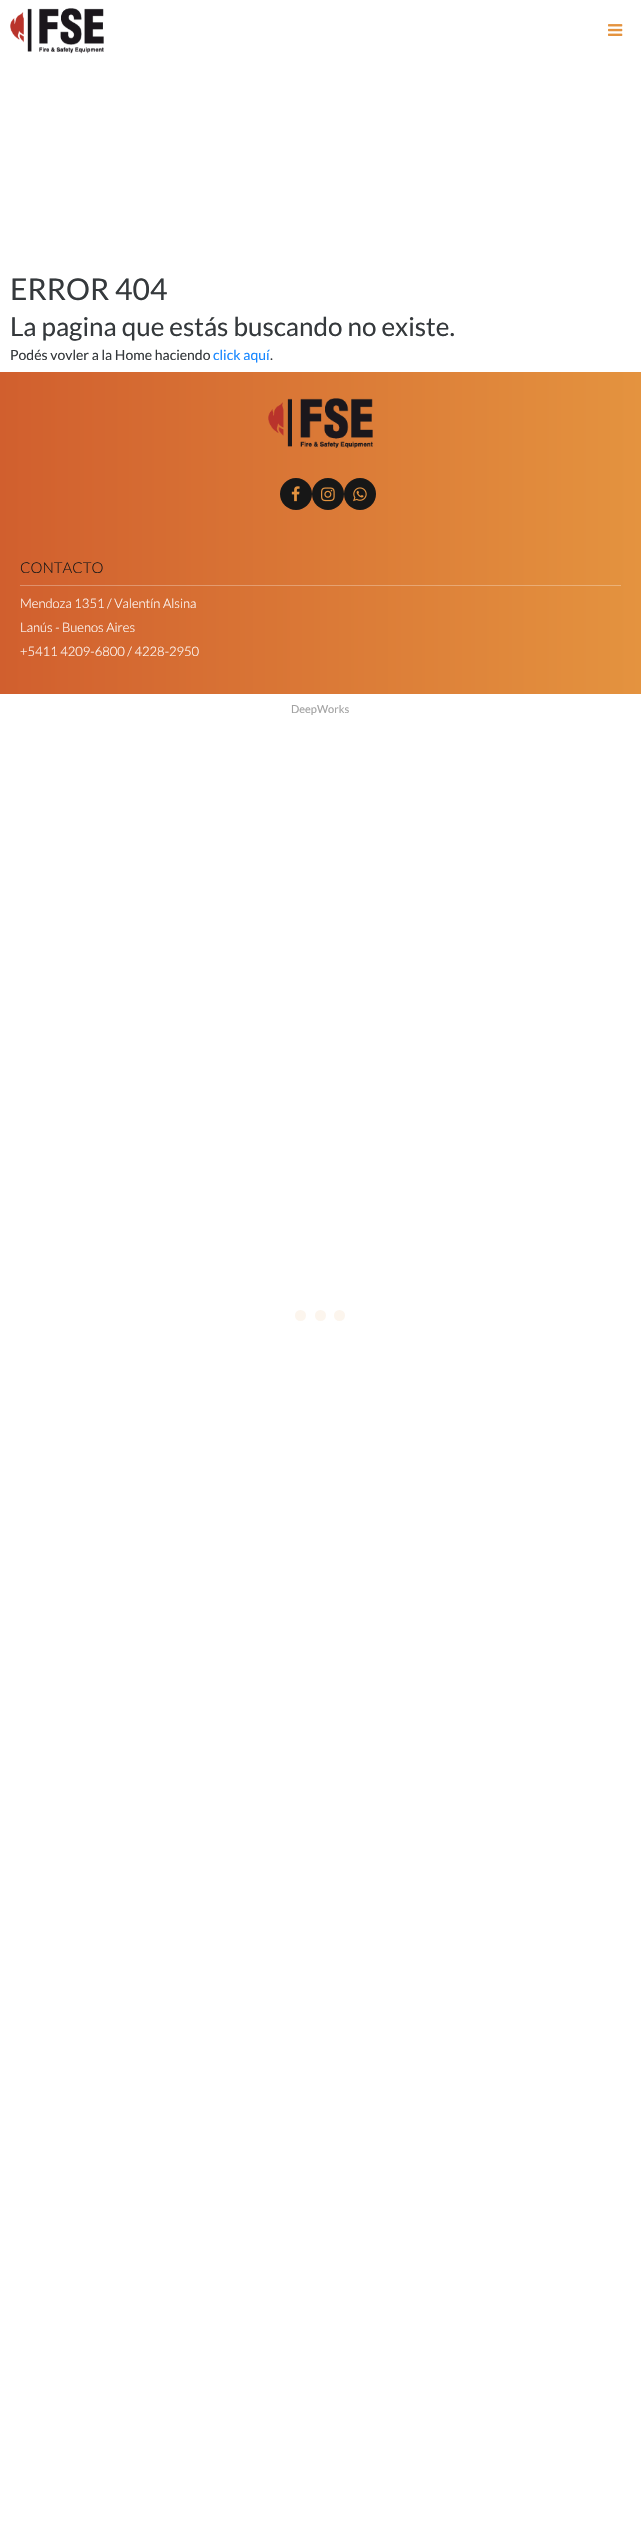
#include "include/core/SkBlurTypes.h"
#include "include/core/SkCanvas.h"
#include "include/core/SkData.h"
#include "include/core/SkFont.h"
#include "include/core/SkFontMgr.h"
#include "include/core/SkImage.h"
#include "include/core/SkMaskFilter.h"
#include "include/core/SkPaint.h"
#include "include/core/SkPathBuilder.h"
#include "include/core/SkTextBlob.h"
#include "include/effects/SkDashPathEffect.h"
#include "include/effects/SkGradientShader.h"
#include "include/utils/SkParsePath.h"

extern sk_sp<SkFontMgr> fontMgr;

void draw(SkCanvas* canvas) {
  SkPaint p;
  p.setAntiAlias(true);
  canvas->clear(SK_ColorWHITE);
  canvas->drawImageRect(SkImages::DeferredFromEncodedData(SkData::MakeFromFileName("images/1.png")), SkRect::MakeLTRB(10, 8, 104, 54), SkSamplingOptions());
  canvas->drawImageRect(SkImages::DeferredFromEncodedData(SkData::MakeFromFileName("images/2.png")), SkRect::MakeLTRB(608, 24, 623, 36), SkSamplingOptions());
  {
    const SkColor colors[] = {SkColorSetRGB(209, 95, 46), SkColorSetRGB(228, 147, 63)};
    const float stops[] = {0, 1};
    const SkPoint ends[] = {{0, 533}, {641, 533}};
    p.setShader(SkGradientShader::MakeLinear(ends, colors, stops, 2, SkTileMode::kClamp));
    p.setAlpha(255);
  }
  canvas->drawRect(SkRect::MakeLTRB(0, 372, 641, 694), p);
  {
    const SkColor colors[] = {SkColorSetRGB(222, 143, 108), SkColorSetRGB(236, 179, 120)};
    const float stops[] = {0, 1};
    const SkPoint ends[] = {{0, 533}, {641, 533}};
    p.setShader(SkGradientShader::MakeLinear(ends, colors, stops, 2, SkTileMode::kClamp));
    p.setAlpha(255);
  }
  canvas->drawRect(SkRect::MakeLTRB(20, 585, 621, 586), p);
  canvas->drawImageRect(SkImages::DeferredFromEncodedData(SkData::MakeFromFileName("images/3.png")), SkRect::MakeLTRB(268, 398, 373, 448), SkSamplingOptions());
  p.setShader(nullptr);
  p.setColor(SkColorSetRGB(23, 23, 23));
  canvas->drawCircle(296, 494, 16, p);
  canvas->drawImageRect(SkImages::DeferredFromEncodedData(SkData::MakeFromFileName("images/4.png")), SkRect::MakeLTRB(291, 486, 300, 502), SkSamplingOptions());
  canvas->drawCircle(328, 494, 16, p);
  canvas->drawImageRect(SkImages::DeferredFromEncodedData(SkData::MakeFromFileName("images/5.png")), SkRect::MakeLTRB(321, 487, 335, 502), SkSamplingOptions());
  canvas->drawCircle(360, 494, 16, p);
  canvas->drawImageRect(SkImages::DeferredFromEncodedData(SkData::MakeFromFileName("images/6.png")), SkRect::MakeLTRB(353, 487, 367, 502), SkSamplingOptions());
  p.setColor(SkColorSetRGB(252, 245, 237));
  canvas->drawCircle(300.5f, 1315.5f, 5.5f, p);
  canvas->drawCircle(320.5f, 1315.5f, 5.5f, p);
  canvas->drawCircle(339.5f, 1315.5f, 5.5f, p);
  SkFont font1(fontMgr->matchFamilyStyle("Lato", SkFontStyle::Normal()), 30);
  font1.setSubpixel(true);
  p.setColor(SkColorSetRGB(53, 57, 60));
  canvas->drawString("ERROR 404", 10, 300, font1, p);
  SkFont font2(fontMgr->matchFamilyStyle("Lato", SkFontStyle::Normal()), 26);
  font2.setSubpixel(true);
  canvas->drawString("La pagina que estás buscando no existe.", 10, 336, font2, p);
  SkFont font3(fontMgr->matchFamilyStyle("Lato", SkFontStyle::Normal()), 14);
  font3.setSubpixel(true);
  canvas->drawString("Podés vovler a la Home haciendo", 10, 360, font3, p);
  p.setColor(SkColorSetRGB(23, 135, 255));
  canvas->drawString("click aquí", 213, 360, font3, p);
  p.setColor(SkColorSetRGB(53, 57, 60));
  canvas->drawString(".", 270, 360, font3, p);
  SkFont font4(fontMgr->matchFamilyStyle("Lato", SkFontStyle(300, SkFontStyle::kNormal_Width, SkFontStyle::kUpright_Slant)), 15);
  font4.setSubpixel(true);
  p.setColor(SkColorSetRGB(23, 23, 23));
  canvas->drawString("CONTACTO", 20, 573, font4, p);
  SkFont font5(fontMgr->matchFamilyStyle("Lato", SkFontStyle(300, SkFontStyle::kNormal_Width, SkFontStyle::kUpright_Slant)), 13);
  font5.setSubpixel(true);
  p.setColor(SK_ColorWHITE);
  canvas->drawString("Mendoza 1351 / Valentín Alsina", 20, 608, font5, p);
  canvas->drawString("Lanús - Buenos Aires", 20, 632, font5, p);
  canvas->drawString("+5411 4209-6800 / 4228-2950", 20, 656, font5, p);
  SkFont font6(fontMgr->matchFamilyStyle("Lato", SkFontStyle::Normal()), 11);
  font6.setSubpixel(true);
  p.setColor(SkColorSetRGB(162, 162, 162));
  canvas->drawString("DeepWorks", 291, 713, font6, p);
}
